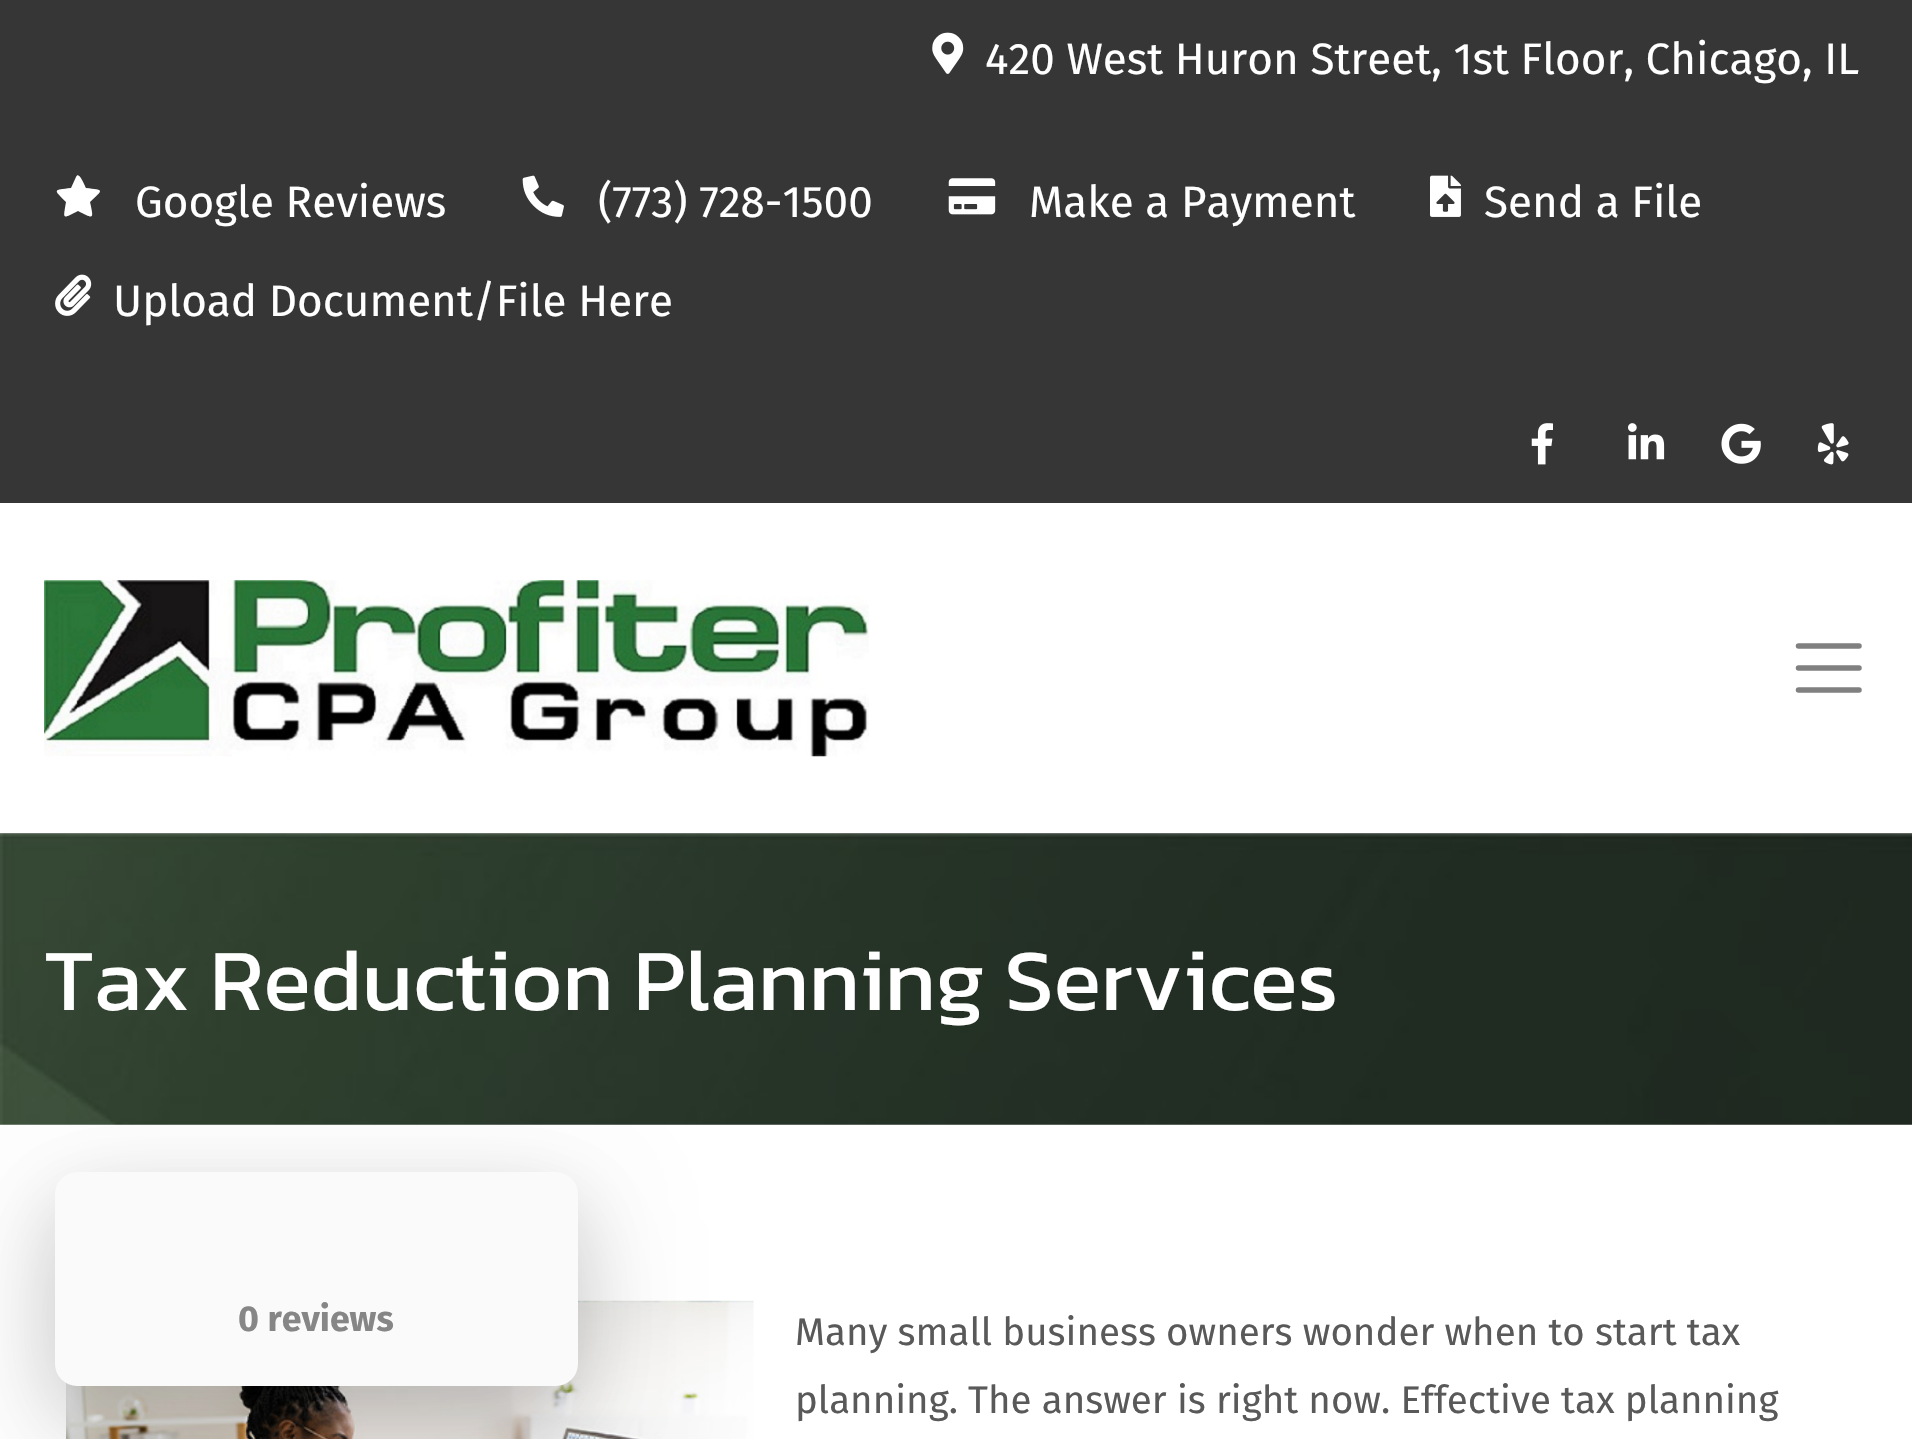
#include "include/core/SkBlurTypes.h"
#include "include/core/SkCanvas.h"
#include "include/core/SkData.h"
#include "include/core/SkFont.h"
#include "include/core/SkFontMgr.h"
#include "include/core/SkImage.h"
#include "include/core/SkMaskFilter.h"
#include "include/core/SkPaint.h"
#include "include/core/SkPathBuilder.h"
#include "include/core/SkTextBlob.h"
#include "include/effects/SkDashPathEffect.h"
#include "include/effects/SkGradientShader.h"
#include "include/utils/SkParsePath.h"

extern sk_sp<SkFontMgr> fontMgr;

void draw(SkCanvas* canvas) {
  SkPaint p;
  p.setAntiAlias(true);
  canvas->clear(SK_ColorWHITE);
  p.setColor(SkColorSetARGB(38, 0, 0, 0));
  p.setMaskFilter(SkMaskFilter::MakeBlur(kNormal_SkBlurStyle, 5.5f));
  canvas->drawRect(SkRect::MakeLTRB(-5, 501, 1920, 842), p);
  p.setMaskFilter(nullptr);
  p.setColor(SkColorSetRGB(54, 54, 54));
  canvas->drawRect(SkRect::MakeLTRB(0, 0, 1912, 503), p);
  canvas->drawImageRect(SkImages::DeferredFromEncodedData(SkData::MakeFromFileName("images/1.png")), SkRect::MakeLTRB(932, 32, 964, 74), SkSamplingOptions());
  p.setColor(SK_ColorWHITE);
  canvas->drawPath(SkPathBuilder().moveTo(76, 177).cubicTo(79, 170, 85, 187, 86, 188).cubicTo(104, 190, 104, 189, 90, 202).cubicTo(94, 220, 94, 219, 78, 211).cubicTo(62, 219, 63, 220, 66, 202).cubicTo(53, 189, 53, 190, 71, 188).close().detach(), p);
  canvas->drawImageRect(SkImages::DeferredFromEncodedData(SkData::MakeFromFileName("images/2.png")), SkRect::MakeLTRB(522, 175, 564, 217), SkSamplingOptions());
  canvas->drawImageRect(SkImages::DeferredFromEncodedData(SkData::MakeFromFileName("images/3.png")), SkRect::MakeLTRB(948, 178, 996, 215), SkSamplingOptions());
  canvas->drawImageRect(SkImages::DeferredFromEncodedData(SkData::MakeFromFileName("images/4.png")), SkRect::MakeLTRB(1430, 175, 1461, 217), SkSamplingOptions());
  canvas->drawImageRect(SkImages::DeferredFromEncodedData(SkData::MakeFromFileName("images/5.png")), SkRect::MakeLTRB(55, 274, 92, 316), SkSamplingOptions());
  canvas->drawImageRect(SkImages::DeferredFromEncodedData(SkData::MakeFromFileName("images/6.png")), SkRect::MakeLTRB(1531, 423, 1553, 465), SkSamplingOptions());
  canvas->drawImageRect(SkImages::DeferredFromEncodedData(SkData::MakeFromFileName("images/7.png")), SkRect::MakeLTRB(1628, 423, 1665, 460), SkSamplingOptions());
  canvas->drawImageRect(SkImages::DeferredFromEncodedData(SkData::MakeFromFileName("images/8.png")), SkRect::MakeLTRB(1721, 423, 1761, 464), SkSamplingOptions());
  canvas->drawImageRect(SkImages::DeferredFromEncodedData(SkData::MakeFromFileName("images/9.png")), SkRect::MakeLTRB(1817, 423, 1849, 465), SkSamplingOptions());
  canvas->drawRect(SkRect::MakeLTRB(0, 503, 1912, 833), p);
  canvas->drawImageRect(SkImages::DeferredFromEncodedData(SkData::MakeFromFileName("images/10.png")), SkRect::MakeLTRB(44, 580, 869, 757), SkSamplingOptions());
  p.setStyle(SkPaint::kStroke_Style);
  p.setStrokeWidth(5.5f);
  p.setStrokeCap(SkPaint::kRound_Cap);
  p.setColor(SkColorSetRGB(128, 128, 128));
  canvas->drawPath(SkPathBuilder().moveTo(1798.5f, 646).lineTo(1859, 646).moveTo(1798.5f, 668).lineTo(1859, 668).moveTo(1798.5f, 690).lineTo(1859, 690).detach(), p);
  canvas->drawImageRect(SkImages::DeferredFromEncodedData(SkData::MakeFromFileName("images/11.png")), SkRect::MakeLTRB(0, 833, 1912, 1125), SkSamplingOptions());
  canvas->drawImageRect(SkImages::DeferredFromEncodedData(SkData::MakeFromFileName("images/12.png")), SkRect::MakeLTRB(66, 1300, 754, 1439), SkSamplingOptions());
  p.setStyle(SkPaint::kFill_Style);
  p.setColor(SkColorSetARGB(38, 0, 0, 0));
  p.setMaskFilter(SkMaskFilter::MakeBlur(kNormal_SkBlurStyle, 41));
  canvas->drawRoundRect(SkRect::MakeLTRB(55, 1199, 578, 1414), 22, 22, p);
  p.setMaskFilter(nullptr);
  p.setColor(SkColorSetARGB(26, 0, 0, 0));
  p.setMaskFilter(SkMaskFilter::MakeBlur(kNormal_SkBlurStyle, 55));
  canvas->drawRoundRect(SkRect::MakeLTRB(55, 1213, 578, 1427), 22, 22, p);
  p.setMaskFilter(nullptr);
  p.setColor(SkColorSetRGB(250, 250, 250));
  canvas->drawRoundRect(SkRect::MakeLTRB(55, 1172, 578, 1386), 22, 22, p);
  SkFont font1(fontMgr->matchFamilyStyle("Fira Sans", SkFontStyle::Normal()), 44);
  font1.setSubpixel(true);
  p.setColor(SK_ColorWHITE);
  canvas->drawString("420 West Huron Street, 1st Floor, Chicago, IL", 985, 74, font1, p);
  canvas->drawString("Google Reviews", 135, 217, font1, p);
  canvas->drawString("(773) 728-1500", 598, 217, font1, p);
  canvas->drawString("Make a Payment", 1029, 217, font1, p);
  canvas->drawString("Send a File", 1484, 217, font1, p);
  canvas->drawString("Upload Document/File Here", 113, 316, font1, p);
  SkFont font2(fontMgr->matchFamilyStyle("Kanit", SkFontStyle::Normal()), 88);
  font2.setSubpixel(true);
  canvas->drawString("Tax Reduction Planning Services", 44, 1010, font2, p);
  SkFont font3(fontMgr->matchFamilyStyle("Fira Sans", SkFontStyle::Bold()), 35.75f);
  font3.setSubpixel(true);
  p.setColor(SkColorSetRGB(134, 134, 134));
  canvas->drawString("0 reviews", 238, 1331, font3, p);
  SkFont font4(fontMgr->matchFamilyStyle("Fira Sans", SkFontStyle::Normal()), 38.5f);
  font4.setSubpixel(true);
  p.setColor(SkColorSetRGB(89, 89, 89));
  canvas->drawString("Many small business owners wonder when to start tax", 795, 1345, font4, p);
  canvas->drawString("planning. The answer is right now. Effective tax planning", 795, 1413, font4, p);
}
